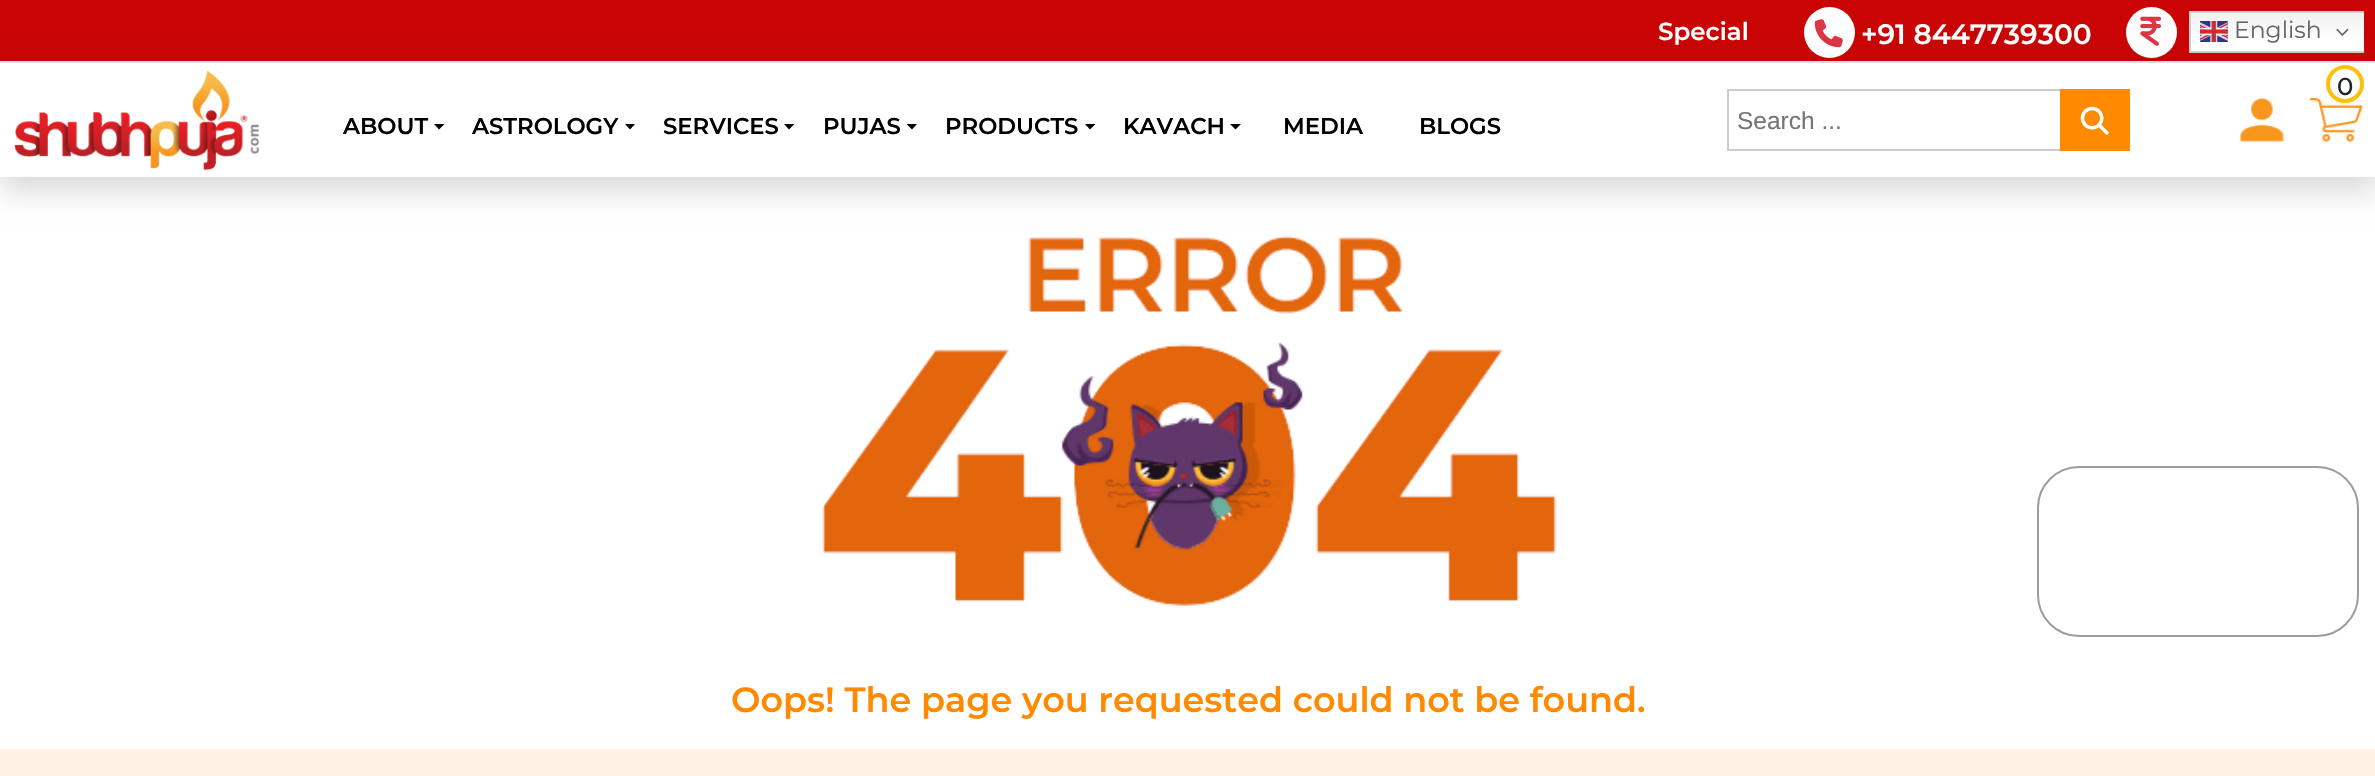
#include "include/core/SkBlurTypes.h"
#include "include/core/SkCanvas.h"
#include "include/core/SkData.h"
#include "include/core/SkFont.h"
#include "include/core/SkFontMgr.h"
#include "include/core/SkImage.h"
#include "include/core/SkMaskFilter.h"
#include "include/core/SkPaint.h"
#include "include/core/SkPathBuilder.h"
#include "include/core/SkTextBlob.h"
#include "include/effects/SkDashPathEffect.h"
#include "include/effects/SkGradientShader.h"
#include "include/utils/SkParsePath.h"

extern sk_sp<SkFontMgr> fontMgr;

void draw(SkCanvas* canvas) {
  SkPaint p;
  p.setAntiAlias(true);
  canvas->clear(SK_ColorWHITE);
  p.setColor(SkColorSetRGB(202, 4, 4));
  canvas->drawRect(SkRect::MakeLTRB(0, 0, 2375, 61), p);
  p.setColor(SkColorSetRGB(222, 226, 230));
  canvas->drawRect(SkRect::MakeLTRB(0, 61, 2375, 63), p);
  p.setColor(SK_ColorWHITE);
  canvas->drawCircle(1829.5f, 32.5f, 25.5f, p);
  canvas->drawImageRect(SkImages::DeferredFromEncodedData(SkData::MakeFromFileName("images/1.png")), SkRect::MakeLTRB(1814, 19, 1843, 48), SkSamplingOptions());
  canvas->drawCircle(2151.5f, 32.5f, 25.5f, p);
  canvas->drawImageRect(SkImages::DeferredFromEncodedData(SkData::MakeFromFileName("images/2.png")), SkRect::MakeLTRB(2140, 16, 2161, 46), SkSamplingOptions());
  p.setColor(SkColorSetARGB(38, 0, 0, 0));
  p.setMaskFilter(SkMaskFilter::MakeBlur(kNormal_SkBlurStyle, 14));
  canvas->drawRect(SkRect::MakeLTRB(0, 77, 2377, 191), p);
  p.setMaskFilter(nullptr);
  {
    const SkColor colors[] = {SkColorSetRGB(239, 239, 239), SK_ColorWHITE};
    const float stops[] = {0, 0.7f};
    const SkPoint ends[] = {{2277, 10}, {2277, 53}};
    p.setShader(SkGradientShader::MakeLinear(ends, colors, stops, 2, SkTileMode::kClamp));
    p.setAlpha(255);
  }
  canvas->drawRect(SkRect::MakeLTRB(2191, 13, 2364, 51), p);
  canvas->save();
  canvas->clipRect(SkRect::MakeLTRB(2189, 11, 2364, 53));
  p.setStyle(SkPaint::kStroke_Style);
  p.setStrokeWidth(2);
  p.setShader(nullptr);
  p.setColor(SkColorSetRGB(204, 204, 204));
  canvas->drawRect(SkRect::MakeLTRB(2190, 12, 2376, 52), p);
  canvas->restore();
  canvas->drawImageRect(SkImages::DeferredFromEncodedData(SkData::MakeFromFileName("images/3.png")), SkRect::MakeLTRB(2200, 21, 2228, 42), SkSamplingOptions());
  canvas->drawImageRect(SkImages::DeferredFromEncodedData(SkData::MakeFromFileName("images/4.png")), SkRect::MakeLTRB(2336, 28, 2349, 36), SkSamplingOptions());
  p.setStyle(SkPaint::kFill_Style);
  p.setColor(SK_ColorWHITE);
  canvas->drawRect(SkRect::MakeLTRB(0, 63, 2375, 177), p);
  canvas->drawImageRect(SkImages::DeferredFromEncodedData(SkData::MakeFromFileName("images/5.png")), SkRect::MakeLTRB(2310, 98, 2363, 142), SkSamplingOptions());
  p.setStyle(SkPaint::kStroke_Style);
  p.setStrokeWidth(4);
  p.setColor(SkColorSetRGB(255, 193, 7));
  canvas->drawCircle(2345, 84, 17, p);
  canvas->drawImageRect(SkImages::DeferredFromEncodedData(SkData::MakeFromFileName("images/6.png")), SkRect::MakeLTRB(2240, 98, 2284, 142), SkSamplingOptions());
  canvas->drawImageRect(SkImages::DeferredFromEncodedData(SkData::MakeFromFileName("images/7.png")), SkRect::MakeLTRB(14, 70, 259, 170), SkSamplingOptions());
  p.setStyle(SkPaint::kFill_Style);
  p.setColor(SK_ColorBLACK);
  canvas->drawPath(SkPathBuilder().moveTo(434, 124).lineTo(444.5f, 124).lineTo(439, 129.5f).close().detach(), p);
  canvas->drawPath(SkPathBuilder().moveTo(625, 124).lineTo(635, 124).lineTo(630, 129.5f).close().detach(), p);
  canvas->drawPath(SkPathBuilder().moveTo(784, 124).lineTo(794.5f, 124).lineTo(789, 129.5f).close().detach(), p);
  canvas->drawPath(SkPathBuilder().moveTo(906.5f, 124).lineTo(917, 124).lineTo(912, 129.5f).close().detach(), p);
  canvas->drawPath(SkPathBuilder().moveTo(1085, 124).lineTo(1095.5f, 124).lineTo(1090, 129.5f).close().detach(), p);
  canvas->drawPath(SkPathBuilder().moveTo(1230, 124).lineTo(1241, 124).lineTo(1235.5f, 129.5f).close().detach(), p);
  p.setStyle(SkPaint::kStroke_Style);
  p.setStrokeWidth(2);
  p.setColor(SkColorSetRGB(204, 204, 204));
  canvas->drawRect(SkRect::MakeLTRB(1728, 90, 2061, 150), p);
  p.setStyle(SkPaint::kFill_Style);
  p.setColor(SkColorSetRGB(255, 138, 0));
  canvas->drawRect(SkRect::MakeLTRB(2060, 89, 2130, 151), p);
  canvas->drawImageRect(SkImages::DeferredFromEncodedData(SkData::MakeFromFileName("images/8.png")), SkRect::MakeLTRB(2080, 106, 2109, 135), SkSamplingOptions());
  p.setStyle(SkPaint::kStroke_Style);
  p.setColor(SkColorSetRGB(159, 155, 155));
  canvas->drawRoundRect(SkRect::MakeLTRB(2038, 467, 2358, 636), 41, 41, p);
  canvas->drawImageRect(SkImages::DeferredFromEncodedData(SkData::MakeFromFileName("images/9.png")), SkRect::MakeLTRB(822, 236, 1557, 606), SkSamplingOptions());
  p.setStyle(SkPaint::kFill_Style);
  p.setColor(SkColorSetRGB(255, 243, 230));
  canvas->drawRect(SkRect::MakeLTRB(0, 749, 2375, 776), p);
  SkFont font1(fontMgr->matchFamilyStyle("Montserrat", SkFontStyle(600, SkFontStyle::kNormal_Width, SkFontStyle::kUpright_Slant)), 24.5f);
  font1.setSubpixel(true);
  p.setColor(SK_ColorWHITE);
  canvas->drawString("Special", 1658, 40, font1, p);
  SkFont font2(fontMgr->matchFamilyStyle("Montserrat", SkFontStyle(600, SkFontStyle::kNormal_Width, SkFontStyle::kUpright_Slant)), 28);
  font2.setSubpixel(true);
  canvas->drawString("+91 8447739300", 1861, 44, font2, p);
  SkFont font3(fontMgr->matchFamilyStyle("Montserrat", SkFontStyle::Normal()), 23.5f);
  font3.setSubpixel(true);
  p.setColor(SkColorSetRGB(102, 102, 102));
  canvas->drawString("English", 2234, 38, font3, p);
  SkFont font4(fontMgr->matchFamilyStyle("Montserrat", SkFontStyle(500, SkFontStyle::kNormal_Width, SkFontStyle::kUpright_Slant)), 24.5f);
  font4.setSubpixel(true);
  p.setColor(SkColorSetRGB(33, 37, 41));
  canvas->drawString("0", 2337, 95, font4, p);
  SkFont font5(fontMgr->matchFamilyStyle("Montserrat", SkFontStyle(600, SkFontStyle::kNormal_Width, SkFontStyle::kUpright_Slant)), 22.75f);
  font5.setSubpixel(true);
  p.setColor(SK_ColorBLACK);
  canvas->drawString("ABOUT", 343, 134, font5, p);
  canvas->drawString("ASTROLOGY", 472, 134, font5, p);
  canvas->drawString("SERVICES", 663, 134, font5, p);
  canvas->drawString("PUJAS", 823, 134, font5, p);
  canvas->drawString("PRODUCTS", 945, 134, font5, p);
  canvas->drawString("KAVACH", 1123, 134, font5, p);
  canvas->drawString("MEDIA", 1283, 134, font5, p);
  canvas->drawString("BLOGS", 1419, 134, font5, p);
  SkFont font6(fontMgr->matchFamilyStyle("Liberation Sans", SkFontStyle::Normal()), 24.5f);
  font6.setSubpixel(true);
  p.setColor(SkColorSetRGB(117, 117, 117));
  canvas->drawString("Search ...", 1737, 129, font6, p);
  SkFont font7(fontMgr->matchFamilyStyle("Montserrat", SkFontStyle(600, SkFontStyle::kNormal_Width, SkFontStyle::kUpright_Slant)), 35);
  font7.setSubpixel(true);
  p.setColor(SkColorSetRGB(255, 138, 0));
  canvas->drawString("Oops! The page you requested could not be found.", 731, 712, font7, p);
}
